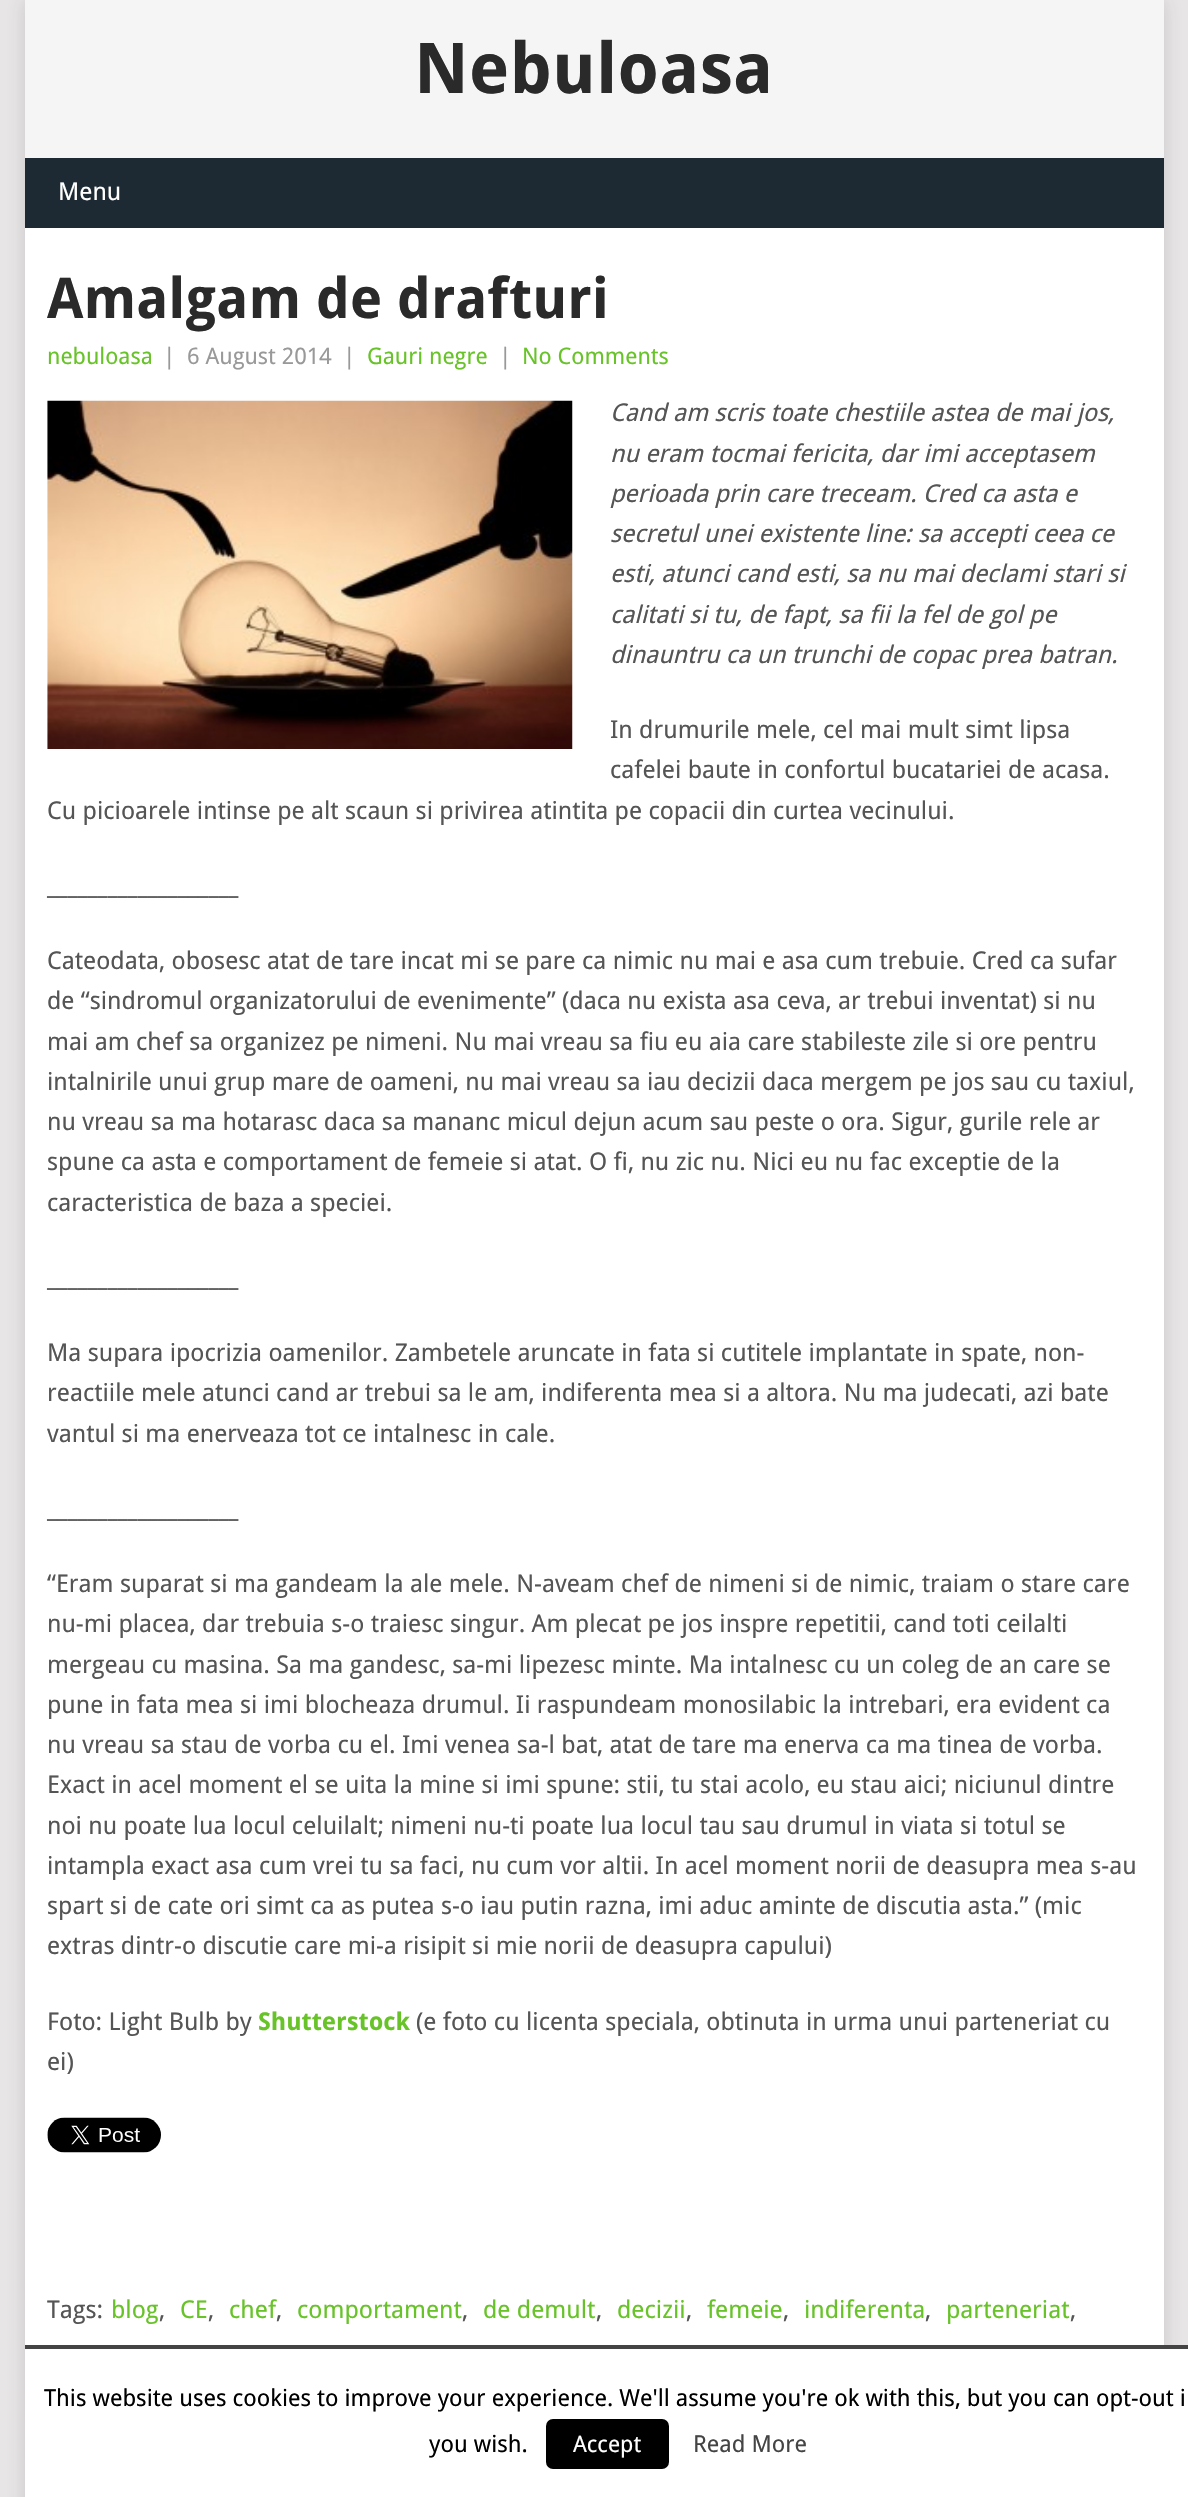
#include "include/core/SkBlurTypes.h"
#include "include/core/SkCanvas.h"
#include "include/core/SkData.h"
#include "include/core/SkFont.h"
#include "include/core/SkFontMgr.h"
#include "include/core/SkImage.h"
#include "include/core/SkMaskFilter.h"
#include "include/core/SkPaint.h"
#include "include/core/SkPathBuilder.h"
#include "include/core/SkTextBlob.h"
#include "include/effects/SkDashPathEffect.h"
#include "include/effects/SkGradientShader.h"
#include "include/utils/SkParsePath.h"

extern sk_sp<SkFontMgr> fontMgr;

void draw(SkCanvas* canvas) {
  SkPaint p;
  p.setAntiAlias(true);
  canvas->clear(SkColorSetRGB(231, 229, 230));
  p.setColor(SkColorSetARGB(43, 50, 50, 50));
  p.setMaskFilter(SkMaskFilter::MakeBlur(kNormal_SkBlurStyle, 9));
  canvas->drawRect(SkRect::MakeLTRB(25, 0, 1164, 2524), p);
  p.setMaskFilter(nullptr);
  p.setColor(SK_ColorWHITE);
  canvas->drawRect(SkRect::MakeLTRB(25, 228, 1164, 2345), p);
  p.setColor(SkColorSetRGB(245, 245, 245));
  canvas->drawRect(SkRect::MakeLTRB(25, 0, 1164, 158), p);
  p.setColor(SkColorSetRGB(29, 41, 51));
  canvas->drawRect(SkRect::MakeLTRB(25, 158, 1164, 228), p);
  canvas->drawImageRect(SkImages::DeferredFromEncodedData(SkData::MakeFromFileName("images/1.png")), SkRect::MakeLTRB(47, 400, 573, 749), SkSamplingOptions());
  canvas->drawImageRect(SkImages::DeferredFromEncodedData(SkData::MakeFromFileName("images/2.png")), SkRect::MakeLTRB(47, 2117, 161, 2153), SkSamplingOptions());
  p.setColor(SK_ColorWHITE);
  canvas->drawRect(SkRect::MakeLTRB(25, 2349, 1188, 2497), p);
  p.setColor(SkColorSetRGB(68, 68, 68));
  canvas->drawRect(SkRect::MakeLTRB(25, 2345, 1188, 2349), p);
  p.setColor(SK_ColorBLACK);
  canvas->drawRoundRect(SkRect::MakeLTRB(546, 2419, 669, 2469), 7, 7, p);
  SkFont font1(fontMgr->matchFamilyStyle("Droid Sans", SkFontStyle::Bold()), 70);
  font1.setSubpixel(true);
  p.setColor(SkColorSetRGB(42, 42, 42));
  canvas->drawString("Nebuloasa", 414, 93, font1, p);
  SkFont font2(fontMgr->matchFamilyStyle("Droid Sans", SkFontStyle::Normal()), 24.5f);
  font2.setSubpixel(true);
  p.setColor(SK_ColorWHITE);
  canvas->drawString("Menu", 58, 200, font2, p);
  SkFont font3(fontMgr->matchFamilyStyle("Droid Sans", SkFontStyle::Bold()), 56);
  font3.setSubpixel(true);
  p.setColor(SkColorSetRGB(42, 42, 42));
  canvas->drawString("Amalgam de drafturi", 47, 318, font3, p);
  SkFont font4(fontMgr->matchFamilyStyle("Droid Sans", SkFontStyle::Normal()), 22.75f);
  font4.setSubpixel(true);
  p.setColor(SkColorSetRGB(104, 195, 41));
  canvas->drawString("nebuloasa", 47, 364, font4, p);
  p.setColor(SkColorSetRGB(153, 153, 153));
  canvas->drawString("|", 163, 364, font4, p);
  canvas->drawString("6 August 2014", 187, 364, font4, p);
  canvas->drawString("|", 343, 364, font4, p);
  p.setColor(SkColorSetRGB(104, 195, 41));
  canvas->drawString("Gauri negre", 367, 364, font4, p);
  p.setColor(SkColorSetRGB(153, 153, 153));
  canvas->drawString("|", 499, 364, font4, p);
  p.setColor(SkColorSetRGB(104, 195, 41));
  canvas->drawString("No Comments", 522, 364, font4, p);
  SkFont font5(fontMgr->matchFamilyStyle("Droid Sans", SkFontStyle::Italic()), 24.5f);
  font5.setSubpixel(true);
  p.setColor(SkColorSetRGB(85, 85, 85));
  canvas->drawString("Cand am scris toate chestiile astea de mai jos,", 610, 421, font5, p);
  canvas->drawString("nu eram tocmai fericita, dar imi acceptasem", 610, 462, font5, p);
  canvas->drawString("perioada prin care treceam. Cred ca asta e", 610, 502, font5, p);
  canvas->drawString("secretul unei existente line: sa accepti ceea ce", 610, 542, font5, p);
  canvas->drawString("esti, atunci cand esti, sa nu mai declami stari si", 610, 582, font5, p);
  canvas->drawString("calitati si tu, de fapt, sa fii la fel de gol pe", 610, 623, font5, p);
  canvas->drawString("dinauntru ca un trunchi de copac prea batran.", 610, 663, font5, p);
  canvas->drawString("In drumurile mele, cel mai mult simt lipsa", 610, 738, font2, p);
  canvas->drawString("cafelei baute in confortul bucatariei de acasa.", 610, 778, font2, p);
  canvas->drawString("Cu picioarele intinse pe alt scaun si privirea atintita pe copacii din curtea vecinului.", 47, 819, font2, p);
  canvas->drawString("___________________", 47, 894, font2, p);
  canvas->drawString("Cateodata, obosesc atat de tare incat mi se pare ca nimic nu mai e asa cum trebuie. Cred ca sufar", 47, 969, font2, p);
  canvas->drawString("de “sindromul organizatorului de evenimente” (daca nu exista asa ceva, ar trebui inventat) si nu", 47, 1009, font2, p);
  canvas->drawString("mai am chef sa organizez pe nimeni. Nu mai vreau sa fiu eu aia care stabileste zile si ore pentru", 47, 1050, font2, p);
  canvas->drawString("intalnirile unui grup mare de oameni, nu mai vreau sa iau decizii daca mergem pe jos sau cu taxiul,", 47, 1090, font2, p);
  canvas->drawString("nu vreau sa ma hotarasc daca sa mananc micul dejun acum sau peste o ora. Sigur, gurile rele ar", 47, 1130, font2, p);
  canvas->drawString("spune ca asta e comportament de femeie si atat. O fi, nu zic nu. Nici eu nu fac exceptie de la", 47, 1170, font2, p);
  canvas->drawString("caracteristica de baza a speciei.", 47, 1211, font2, p);
  canvas->drawString("___________________", 47, 1286, font2, p);
  canvas->drawString("Ma supara ipocrizia oamenilor. Zambetele aruncate in fata si cutitele implantate in spate, non-", 47, 1361, font2, p);
  canvas->drawString("reactiile mele atunci cand ar trebui sa le am, indiferenta mea si a altora. Nu ma judecati, azi bate", 47, 1401, font2, p);
  canvas->drawString("vantul si ma enerveaza tot ce intalnesc in cale.", 47, 1442, font2, p);
  canvas->drawString("___________________", 47, 1517, font2, p);
  canvas->drawString("“Eram suparat si ma gandeam la ale mele. N-aveam chef de nimeni si de nimic, traiam o stare care", 47, 1592, font2, p);
  canvas->drawString("nu-mi placea, dar trebuia s-o traiesc singur. Am plecat pe jos inspre repetitii, cand toti ceilalti", 47, 1632, font2, p);
  canvas->drawString("mergeau cu masina. Sa ma gandesc, sa-mi lipezesc minte. Ma intalnesc cu un coleg de an care se", 47, 1673, font2, p);
  canvas->drawString("pune in fata mea si imi blocheaza drumul. Ii raspundeam monosilabic la intrebari, era evident ca", 47, 1713, font2, p);
  canvas->drawString("nu vreau sa stau de vorba cu el. Imi venea sa-l bat, atat de tare ma enerva ca ma tinea de vorba.", 47, 1753, font2, p);
  canvas->drawString("Exact in acel moment el se uita la mine si imi spune: stii, tu stai acolo, eu stau aici; niciunul dintre", 47, 1793, font2, p);
  canvas->drawString("noi nu poate lua locul celuilalt; nimeni nu-ti poate lua locul tau sau drumul in viata si totul se", 47, 1834, font2, p);
  canvas->drawString("intampla exact asa cum vrei tu sa faci, nu cum vor altii. In acel moment norii de deasupra mea s-au", 47, 1874, font2, p);
  canvas->drawString("spart si de cate ori simt ca as putea s-o iau putin razna, imi aduc aminte de discutia asta.” (mic", 47, 1914, font2, p);
  canvas->drawString("extras dintr-o discutie care mi-a risipit si mie norii de deasupra capului)", 47, 1954, font2, p);
  canvas->drawString("Foto: Light Bulb by", 47, 2030, font2, p);
  SkFont font6(fontMgr->matchFamilyStyle("Droid Sans", SkFontStyle::Bold()), 24.5f);
  font6.setSubpixel(true);
  p.setColor(SkColorSetRGB(104, 195, 41));
  canvas->drawString("Shutterstock", 258, 2030, font6, p);
  p.setColor(SkColorSetRGB(85, 85, 85));
  canvas->drawString("(e foto cu licenta speciala, obtinuta in urma unui parteneriat cu", 416, 2030, font2, p);
  canvas->drawString("ei)", 47, 2070, font2, p);
  canvas->save();
  canvas->clipRect(SkRect::MakeLTRB(47, 394, 1141, 2389));
  canvas->drawString("Tags:", 47, 2318, font2, p);
  canvas->restore();
  p.setColor(SkColorSetRGB(104, 195, 41));
  canvas->drawString("blog", 111, 2318, font2, p);
  p.setColor(SkColorSetRGB(85, 85, 85));
  canvas->drawString(",", 159, 2318, font2, p);
  p.setColor(SkColorSetRGB(104, 195, 41));
  canvas->drawString("CE", 180, 2318, font2, p);
  p.setColor(SkColorSetRGB(85, 85, 85));
  canvas->drawString(",", 208, 2318, font2, p);
  p.setColor(SkColorSetRGB(104, 195, 41));
  canvas->drawString("chef", 229, 2318, font2, p);
  p.setColor(SkColorSetRGB(85, 85, 85));
  canvas->drawString(",", 276, 2318, font2, p);
  p.setColor(SkColorSetRGB(104, 195, 41));
  canvas->drawString("comportament", 297, 2318, font2, p);
  p.setColor(SkColorSetRGB(85, 85, 85));
  canvas->drawString(",", 462, 2318, font2, p);
  p.setColor(SkColorSetRGB(104, 195, 41));
  canvas->drawString("de demult", 483, 2318, font2, p);
  p.setColor(SkColorSetRGB(85, 85, 85));
  canvas->drawString(",", 596, 2318, font2, p);
  p.setColor(SkColorSetRGB(104, 195, 41));
  canvas->drawString("decizii", 617, 2318, font2, p);
  p.setColor(SkColorSetRGB(85, 85, 85));
  canvas->drawString(",", 686, 2318, font2, p);
  p.setColor(SkColorSetRGB(104, 195, 41));
  canvas->drawString("femeie", 707, 2318, font2, p);
  p.setColor(SkColorSetRGB(85, 85, 85));
  canvas->drawString(",", 783, 2318, font2, p);
  p.setColor(SkColorSetRGB(104, 195, 41));
  canvas->drawString("indiferenta", 804, 2318, font2, p);
  p.setColor(SkColorSetRGB(85, 85, 85));
  canvas->drawString(",", 925, 2318, font2, p);
  p.setColor(SkColorSetRGB(104, 195, 41));
  canvas->drawString("parteneriat", 946, 2318, font2, p);
  p.setColor(SkColorSetRGB(85, 85, 85));
  canvas->drawString(",", 1070, 2318, font2, p);
  SkFont font7(fontMgr->matchFamilyStyle("Droid Sans", SkFontStyle::Normal()), 23.35f);
  font7.setSubpixel(true);
  p.setColor(SK_ColorBLACK);
  canvas->drawString("This website uses cookies to improve your experience. We'll assume you're ok with this, but you can opt-out i", 44, 2406, font7, p);
  canvas->drawString("you wish.", 429, 2452, font7, p);
  p.setColor(SK_ColorWHITE);
  canvas->drawString("Accept", 573, 2452, font4, p);
  p.setColor(SkColorSetRGB(68, 68, 68));
  canvas->drawString("Read More", 693, 2452, font7, p);
}
